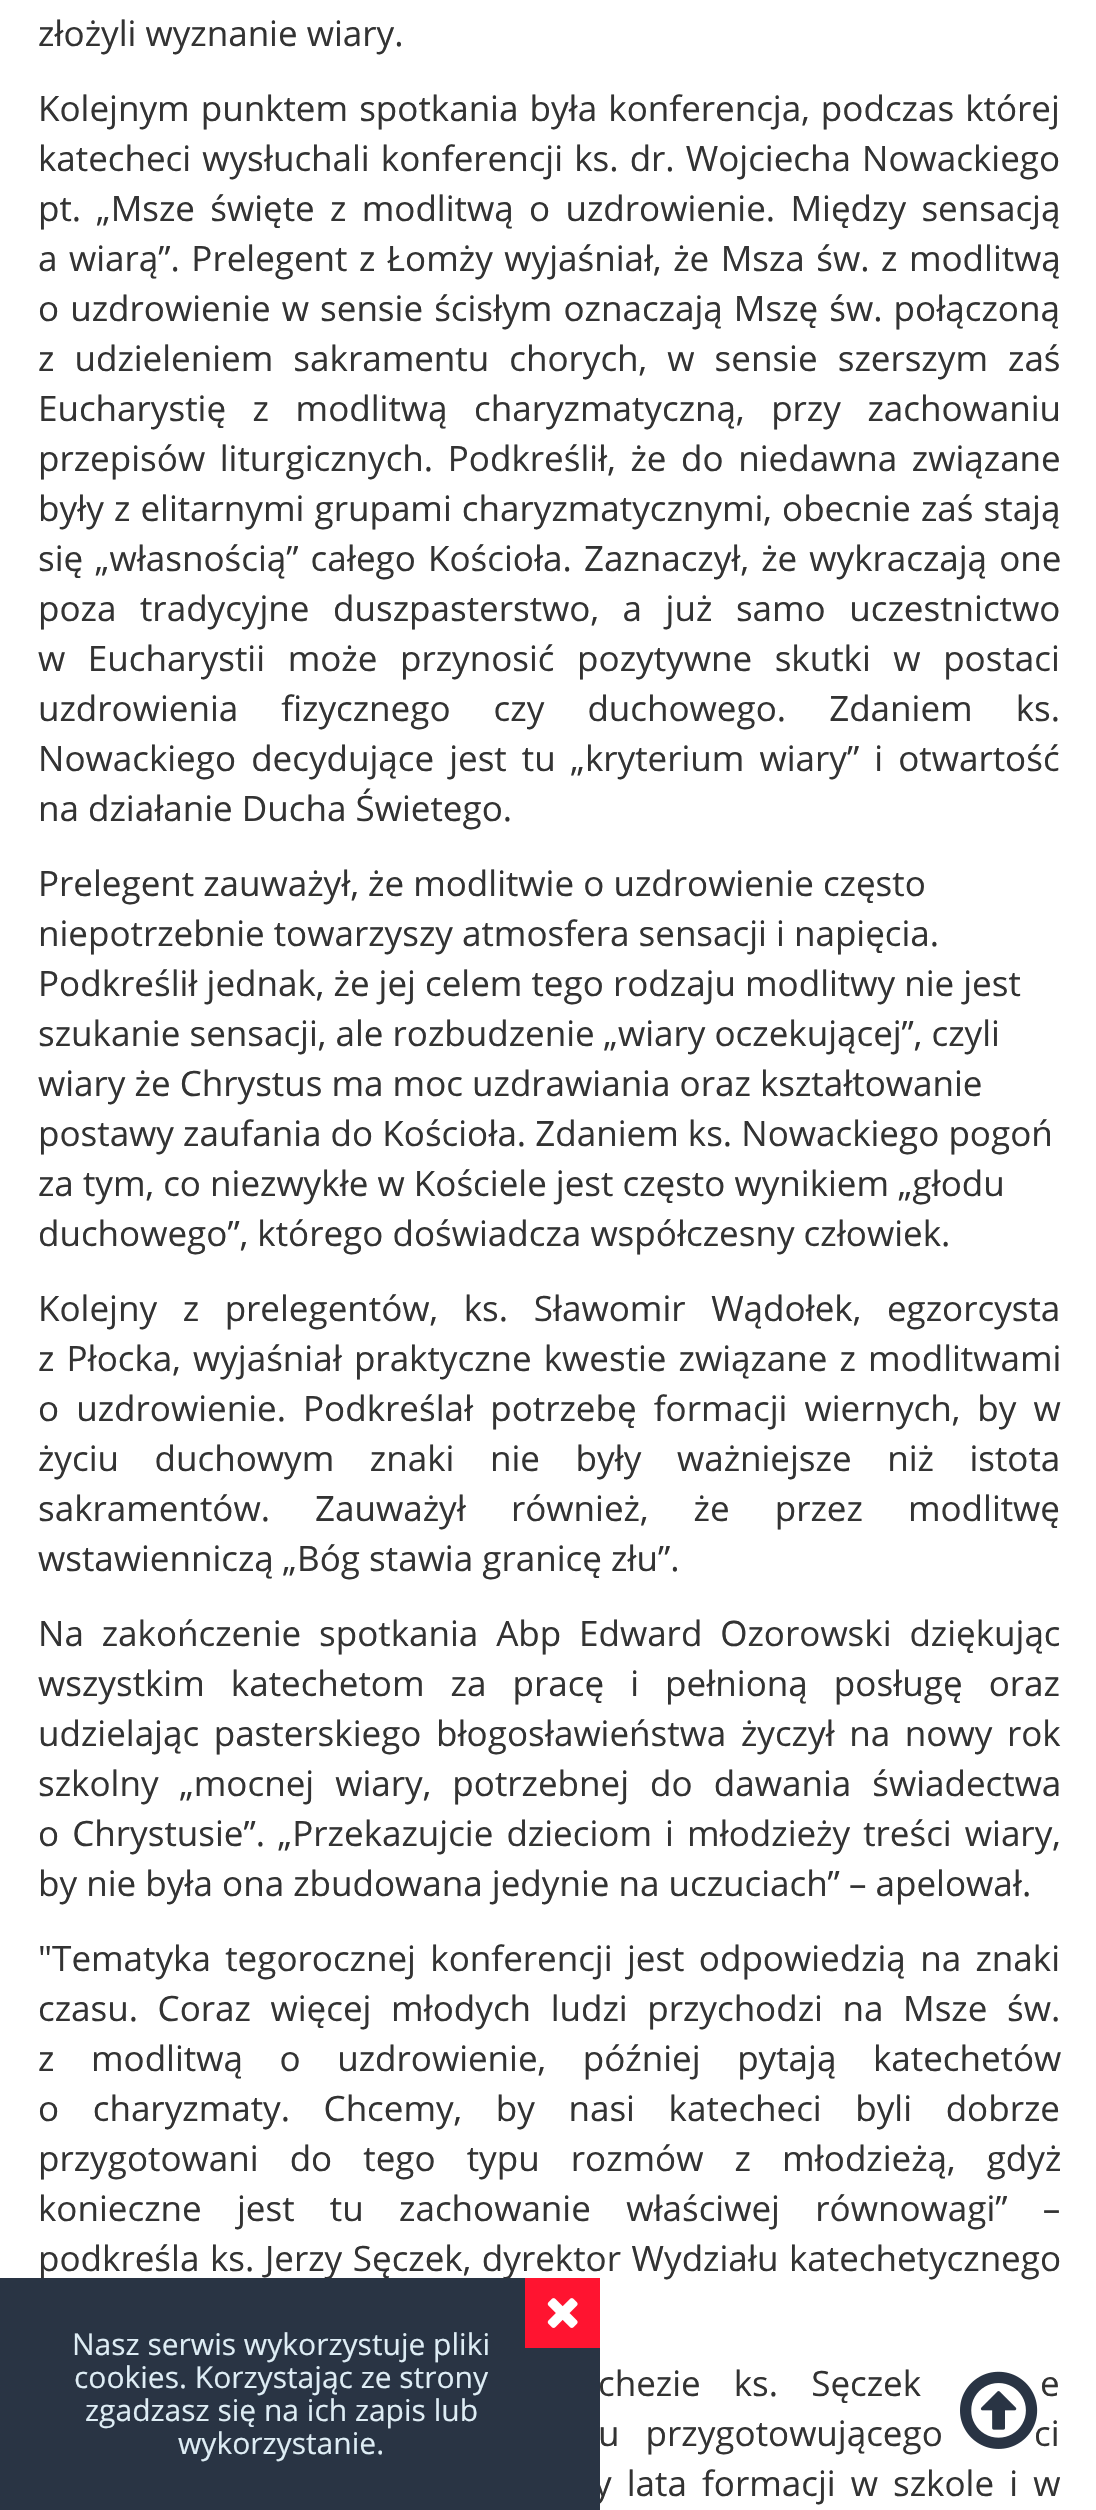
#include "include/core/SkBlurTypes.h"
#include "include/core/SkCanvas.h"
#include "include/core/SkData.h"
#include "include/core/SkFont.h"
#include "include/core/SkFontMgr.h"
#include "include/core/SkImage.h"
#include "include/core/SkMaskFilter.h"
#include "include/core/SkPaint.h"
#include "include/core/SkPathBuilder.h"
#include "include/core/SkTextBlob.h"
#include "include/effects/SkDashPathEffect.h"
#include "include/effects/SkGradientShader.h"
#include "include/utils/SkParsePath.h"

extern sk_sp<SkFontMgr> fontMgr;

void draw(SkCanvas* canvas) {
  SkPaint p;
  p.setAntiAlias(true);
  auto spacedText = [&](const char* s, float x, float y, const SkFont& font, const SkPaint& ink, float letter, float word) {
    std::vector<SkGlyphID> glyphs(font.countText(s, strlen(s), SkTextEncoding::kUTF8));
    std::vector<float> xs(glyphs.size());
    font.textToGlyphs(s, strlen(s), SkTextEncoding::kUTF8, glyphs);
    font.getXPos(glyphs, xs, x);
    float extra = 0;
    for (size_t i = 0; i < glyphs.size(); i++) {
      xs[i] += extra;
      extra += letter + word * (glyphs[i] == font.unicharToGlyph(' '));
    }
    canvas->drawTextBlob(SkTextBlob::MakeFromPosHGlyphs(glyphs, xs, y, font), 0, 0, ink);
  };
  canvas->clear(SK_ColorWHITE);
  SkFont font1(fontMgr->matchFamilyStyle("Open Sans", SkFontStyle::Normal()), 35);
  font1.setSubpixel(true);
  p.setColor(SkColorSetRGB(51, 51, 51));
  canvas->drawString("złożyli wyznanie wiary.", 38, 46, font1, p);
  spacedText("Kolejnym punktem spotkania była konferencja, podczas której", 38, 121, font1, p, 0, 2);
  spacedText("katecheci wysłuchali konferencji ks. dr. Wojciecha Nowackiego", 38, 171, font1, p, 0, 2);
  spacedText("pt. „Msze święte z modlitwą o uzdrowienie. Między sensacją", 38, 221, font1, p, 0, 6.25f);
  spacedText("a wiarą”. Prelegent z Łomży wyjaśniał, że Msza św. z modlitwą", 38, 271, font1, p, 0, 2.4f);
  spacedText("o uzdrowienie w sensie ścisłym oznaczają Mszę św. połączoną", 38, 321, font1, p, 0, 2);
  spacedText("z udzieleniem sakramentu chorych, w sensie szerszym zaś", 38, 371, font1, p, 0, 11);
  spacedText("Eucharystię z modlitwą charyzmatyczną, przy zachowaniu", 38, 421, font1, p, 0, 17.5f);
  spacedText("przepisów liturgicznych. Podkreślił, że do niedawna związane", 38, 471, font1, p, 0, 5.5f);
  spacedText("były z elitarnymi grupami charyzmatycznymi, obecnie zaś stają", 38, 521, font1, p, 0, 1);
  spacedText("się „własnością” całego Kościoła. Zaznaczył, że wykraczają one", 38, 571, font1, p, 0, 3);
  spacedText("poza tradycyjne duszpasterstwo, a już samo uczestnictwo", 38, 621, font1, p, 0, 14.5f);
  spacedText("w Eucharystii może przynosić pozytywne skutki w postaci", 38, 671, font1, p, 0, 13.5f);
  spacedText("uzdrowienia fizycznego czy duchowego. Zdaniem ks.", 38, 721, font1, p, 0, 34);
  spacedText("Nowackiego decydujące jest tu „kryterium wiary” i otwartość", 38, 771, font1, p, 0, 6);
  canvas->drawString("na działanie Ducha Świetego.", 38, 821, font1, p);
  canvas->drawString("Prelegent zauważył, że modlitwie o uzdrowienie często", 38, 896, font1, p);
  canvas->drawString("niepotrzebnie towarzyszy atmosfera sensacji i napięcia.", 38, 946, font1, p);
  canvas->drawString("Podkreślił jednak, że jej celem tego rodzaju modlitwy nie jest", 38, 996, font1, p);
  canvas->drawString("szukanie sensacji, ale rozbudzenie „wiary oczekującej”, czyli", 38, 1046, font1, p);
  canvas->drawString("wiary że Chrystus ma moc uzdrawiania oraz kształtowanie", 38, 1096, font1, p);
  canvas->drawString("postawy zaufania do Kościoła. Zdaniem ks. Nowackiego pogoń", 38, 1146, font1, p);
  canvas->drawString("za tym, co niezwykłe w Kościele jest często wynikiem „głodu", 38, 1196, font1, p);
  canvas->drawString("duchowego”, którego doświadcza współczesny człowiek.", 38, 1246, font1, p);
  spacedText("Kolejny z prelegentów, ks. Sławomir Wądołek, egzorcysta", 38, 1321, font1, p, 0, 16.5f);
  spacedText("z Płocka, wyjaśniał praktyczne kwestie związane z modlitwami", 38, 1371, font1, p, 0, 3);
  spacedText("o uzdrowienie. Podkreślał potrzebę formacji wiernych, by w", 38, 1421, font1, p, 0, 8);
  spacedText("życiu duchowym znaki nie były ważniejsze niż istota", 38, 1471, font1, p, 0, 26.5f);
  spacedText("sakramentów. Zauważył również, że przez modlitwę", 38, 1521, font1, p, 0, 36);
  canvas->drawString("wstawienniczą „Bóg stawia granicę złu”.", 38, 1571, font1, p);
  spacedText("Na zakończenie spotkania Abp Edward Ozorowski dziękując", 38, 1646, font1, p, 0, 8.75f);
  spacedText("wszystkim katechetom za pracę i pełnioną posługę oraz", 38, 1696, font1, p, 0, 17);
  spacedText("udzielając pasterskiego błogosławieństwa życzył na nowy rok", 38, 1746, font1, p, 0, 5.5f);
  spacedText("szkolny „mocnej wiary, potrzebnej do dawania świadectwa", 38, 1796, font1, p, 0, 12);
  spacedText("o Chrystusie”. „Przekazujcie dzieciom i młodzieży treści wiary,", 38, 1846, font1, p, 0, 4);
  canvas->drawString("by nie była ona zbudowana jedynie na uczuciach” – apelował.", 38, 1896, font1, p);
  spacedText("\"Tematyka tegorocznej konferencji jest odpowiedzią na znaki", 38, 1971, font1, p, 0, 5.25f);
  spacedText("czasu. Coraz więcej młodych ludzi przychodzi na Msze św.", 38, 2021, font1, p, 0, 10.5f);
  spacedText("z modlitwą o uzdrowienie, później pytają katechetów", 38, 2071, font1, p, 0, 27.5f);
  spacedText("o charyzmaty. Chcemy, by nasi katecheci byli dobrze", 38, 2121, font1, p, 0, 24.5f);
  spacedText("przygotowani do tego typu rozmów z młodzieżą, gdyż", 38, 2171, font1, p, 0, 22);
  spacedText("konieczne jest tu zachowanie właściwej równowagi” –", 38, 2221, font1, p, 0, 26.25f);
  spacedText("podkreśla ks. Jerzy Sęczek, dyrektor Wydziału katechetycznego", 38, 2271, font1, p, 0, 1.5f);
  spacedText("chezie ks. Sęczek", 598, 2396, font1, p, 0, 24);
  spacedText("e", 1040, 2396, font1, p, 0, 24);
  spacedText("u przygotowującego", 598, 2446, font1, p, 0, 17);
  spacedText("ci", 1034, 2446, font1, p, 0, 17);
  spacedText("y lata formacji w szkole i w", 594, 2496, font1, p, 0, 6);
  p.setColor(SkColorSetRGB(41, 52, 68));
  canvas->drawRect(SkRect::MakeLTRB(0, 2278, 600, 2510), p);
  SkFont font2(fontMgr->matchFamilyStyle("Open Sans", SkFontStyle::Normal()), 30);
  font2.setSubpixel(true);
  p.setColor(SkColorSetRGB(222, 237, 245));
  canvas->drawString("Nasz serwis wykorzystuje pliki", 72, 2355, font2, p);
  p.setColor(SkColorSetRGB(255, 20, 48));
  canvas->drawRect(SkRect::MakeLTRB(525, 2278, 600, 2348), p);
  canvas->drawImageRect(SkImages::DeferredFromEncodedData(SkData::MakeFromFileName("images/1.png")), SkRect::MakeLTRB(547, 2298, 578, 2328), SkSamplingOptions());
  p.setColor(SkColorSetRGB(222, 237, 245));
  canvas->drawString("cookies. Korzystając ze strony", 74, 2388, font2, p);
  canvas->drawString("zgadzasz się na ich zapis lub", 85, 2421, font2, p);
  canvas->drawString("wykorzystanie.", 178, 2454, font2, p);
  canvas->drawImageRect(SkImages::DeferredFromEncodedData(SkData::MakeFromFileName("images/2.png")), SkRect::MakeLTRB(960, 2371, 1038, 2449), SkSamplingOptions());
}
